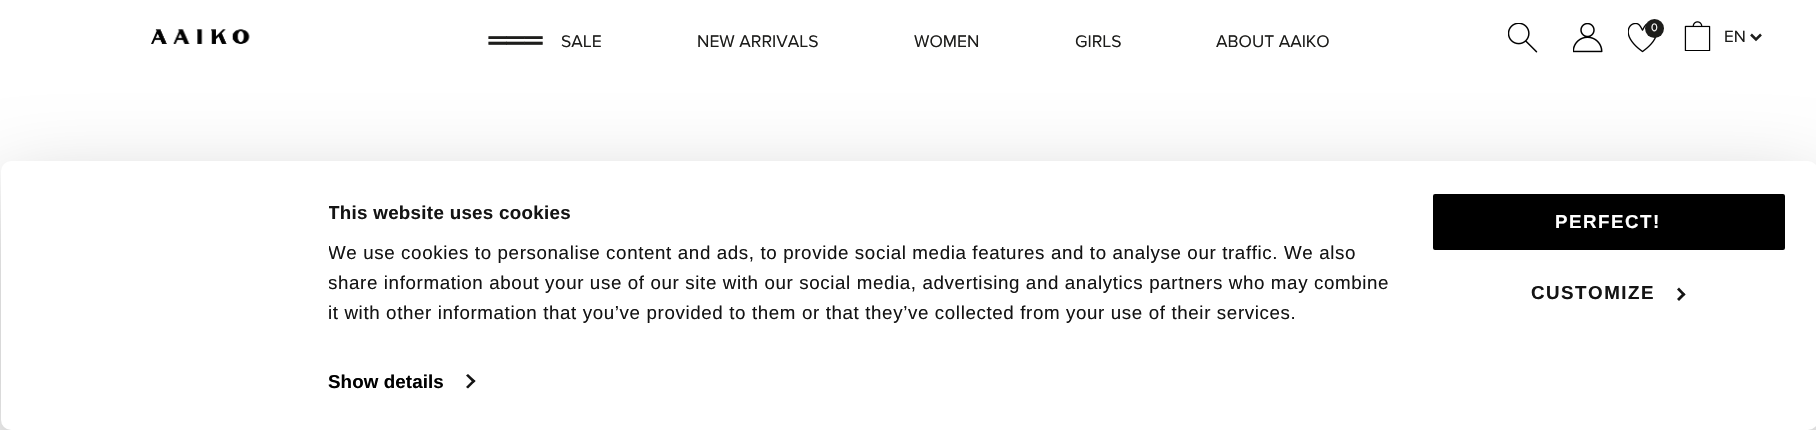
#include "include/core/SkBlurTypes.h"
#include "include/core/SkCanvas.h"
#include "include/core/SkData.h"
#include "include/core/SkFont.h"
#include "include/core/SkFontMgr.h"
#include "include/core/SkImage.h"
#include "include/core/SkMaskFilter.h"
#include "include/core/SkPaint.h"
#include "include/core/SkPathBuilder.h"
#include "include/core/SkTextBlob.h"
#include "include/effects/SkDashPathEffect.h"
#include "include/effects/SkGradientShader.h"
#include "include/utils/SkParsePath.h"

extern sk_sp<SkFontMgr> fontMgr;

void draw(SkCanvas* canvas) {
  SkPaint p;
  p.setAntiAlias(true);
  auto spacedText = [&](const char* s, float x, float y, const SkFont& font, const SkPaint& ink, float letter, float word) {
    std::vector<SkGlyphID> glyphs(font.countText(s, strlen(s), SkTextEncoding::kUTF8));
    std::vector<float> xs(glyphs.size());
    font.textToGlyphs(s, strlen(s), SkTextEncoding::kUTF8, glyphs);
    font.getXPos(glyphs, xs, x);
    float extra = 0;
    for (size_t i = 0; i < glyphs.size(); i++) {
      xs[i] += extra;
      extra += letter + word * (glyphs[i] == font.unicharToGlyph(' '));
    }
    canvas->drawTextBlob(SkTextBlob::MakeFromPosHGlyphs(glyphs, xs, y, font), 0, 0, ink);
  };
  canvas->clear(SK_ColorWHITE);
  canvas->drawImageRect(SkImages::DeferredFromEncodedData(SkData::MakeFromFileName("images/1.png")), SkRect::MakeLTRB(151, 29, 250, 44), SkSamplingOptions());
  canvas->drawImageRect(SkImages::DeferredFromEncodedData(SkData::MakeFromFileName("images/2.png")), SkRect::MakeLTRB(1508, 23, 1538, 53), SkSamplingOptions());
  canvas->drawImageRect(SkImages::DeferredFromEncodedData(SkData::MakeFromFileName("images/3.png")), SkRect::MakeLTRB(1573, 23, 1603, 53), SkSamplingOptions());
  canvas->drawImageRect(SkImages::DeferredFromEncodedData(SkData::MakeFromFileName("images/4.png")), SkRect::MakeLTRB(1628, 23, 1657, 53), SkSamplingOptions());
  p.setColor(SkColorSetRGB(29, 29, 27));
  canvas->drawCircle(1654.5f, 28.5f, 9.5f, p);
  canvas->drawImageRect(SkImages::DeferredFromEncodedData(SkData::MakeFromFileName("images/5.png")), SkRect::MakeLTRB(1684, 21, 1711, 51), SkSamplingOptions());
  p.setStyle(SkPaint::kStroke_Style);
  p.setStrokeWidth(2.5f);
  canvas->drawPath(SkPathBuilder().moveTo(1751, 34.5f).lineTo(1756, 39.5f).lineTo(1761, 34.5f).detach(), p);
  p.setStyle(SkPaint::kFill_Style);
  p.setColor(SkColorSetARGB(77, 0, 0, 0));
  p.setMaskFilter(SkMaskFilter::MakeBlur(kNormal_SkBlurStyle, 44));
  canvas->drawRoundRect(SkRect::MakeLTRB(1, 199, 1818, 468), 10, 10, p);
  p.setMaskFilter(nullptr);
  p.setColor(SK_ColorWHITE);
  canvas->drawRoundRect(SkRect::MakeLTRB(1, 161, 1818, 430), 10, 10, p);
  p.setColor(SkColorSetRGB(20, 20, 20));
  canvas->drawPath(SkPathBuilder().moveTo(468, 374).lineTo(475.5f, 381).lineTo(473.5f, 383).lineTo(466, 375.5f).close().detach(), p);
  canvas->drawPath(SkPathBuilder().moveTo(473.5f, 379.5f).lineTo(475.5f, 381).lineTo(468, 388.5f).lineTo(466, 387).close().detach(), p);
  p.setColor(SK_ColorBLACK);
  canvas->drawRoundRect(SkRect::MakeLTRB(1431.5f, 192.5f, 1786.5f, 251.5f), 3.5f, 3.5f, p);
  p.setStyle(SkPaint::kStroke_Style);
  p.setStrokeWidth(3);
  p.setColor(SK_ColorWHITE);
  canvas->drawRoundRect(SkRect::MakeLTRB(1431.5f, 192.5f, 1786.5f, 251.5f), 3.5f, 3.5f, p);
  p.setStyle(SkPaint::kFill_Style);
  p.setColor(SkColorSetRGB(20, 20, 20));
  canvas->drawPath(SkPathBuilder().moveTo(1679, 287.5f).lineTo(1685.5f, 294.5f).lineTo(1683.5f, 296).lineTo(1677, 289.5f).close().detach(), p);
  canvas->drawPath(SkPathBuilder().moveTo(1683.5f, 292.5f).lineTo(1685.5f, 294.5f).lineTo(1679, 301).lineTo(1677, 299).close().detach(), p);
  SkFont font1(fontMgr->matchFamilyStyle("Jost", SkFontStyle::Normal()), 38);
  font1.setSubpixel(true);
  p.setColor(SkColorSetRGB(29, 29, 27));
  spacedText("===", 486, 50, font1, p, -5.5f, 0);
  SkFont font2(fontMgr->matchFamilyStyle("Proxima Nova", SkFontStyle::Normal()), 17.5f);
  font2.setSubpixel(true);
  canvas->drawString("SALE", 561, 47, font2, p);
  canvas->drawString("NEW ARRIVALS", 697, 47, font2, p);
  canvas->drawString("WOMEN", 914, 47, font2, p);
  canvas->drawString("GIRLS", 1075, 47, font2, p);
  canvas->drawString("ABOUT AAIKO", 1216, 47, font2, p);
  SkFont font3(fontMgr->matchFamilyStyle("Proxima Nova", SkFontStyle::Normal()), 11);
  font3.setSubpixel(true);
  p.setColor(SK_ColorWHITE);
  canvas->drawString("0", 1651, 31, font3, p);
  SkFont font4(fontMgr->matchFamilyStyle("Proxima Nova", SkFontStyle::Normal()), 17);
  font4.setSubpixel(true);
  p.setColor(SkColorSetRGB(29, 29, 27));
  canvas->drawString("EN", 1724, 42, font4, p);
  canvas->save();
  canvas->clipRect(SkRect::MakeLTRB(329, 199, 1423, 328));
  SkFont font5(fontMgr->matchFamilyStyle("Liberation Sans", SkFontStyle::Bold()), 18.75f);
  font5.setSubpixel(true);
  p.setColor(SkColorSetRGB(20, 20, 20));
  spacedText("This website uses cookies", 328, 219, font5, p, 0.3f, 0);
  SkFont font6(fontMgr->matchFamilyStyle("Liberation Sans", SkFontStyle::Normal()), 18.75f);
  font6.setSubpixel(true);
  spacedText("We use cookies to personalise content and ads, to provide social media features and to analyse our traffic. We also", 328, 259, font6, p, 0.62f, 0);
  spacedText("share information about your use of our site with our social media, advertising and analytics partners who may combine", 328, 289, font6, p, 0.62f, 0);
  spacedText("it with other information that you’ve provided to them or that they’ve collected from your use of their services.", 328, 319, font6, p, 0.62f, 0);
  canvas->restore();
  p.setColor(SK_ColorBLACK);
  spacedText("Show details", 328, 388, font5, p, 0.1f, 0);
  p.setColor(SK_ColorWHITE);
  spacedText("PERFECT!", 1555, 228, font5, p, 1.5f, 0);
  p.setColor(SkColorSetRGB(20, 20, 20));
  spacedText("CUSTOMIZE", 1531, 299, font5, p, 1.5f, 0);
}
